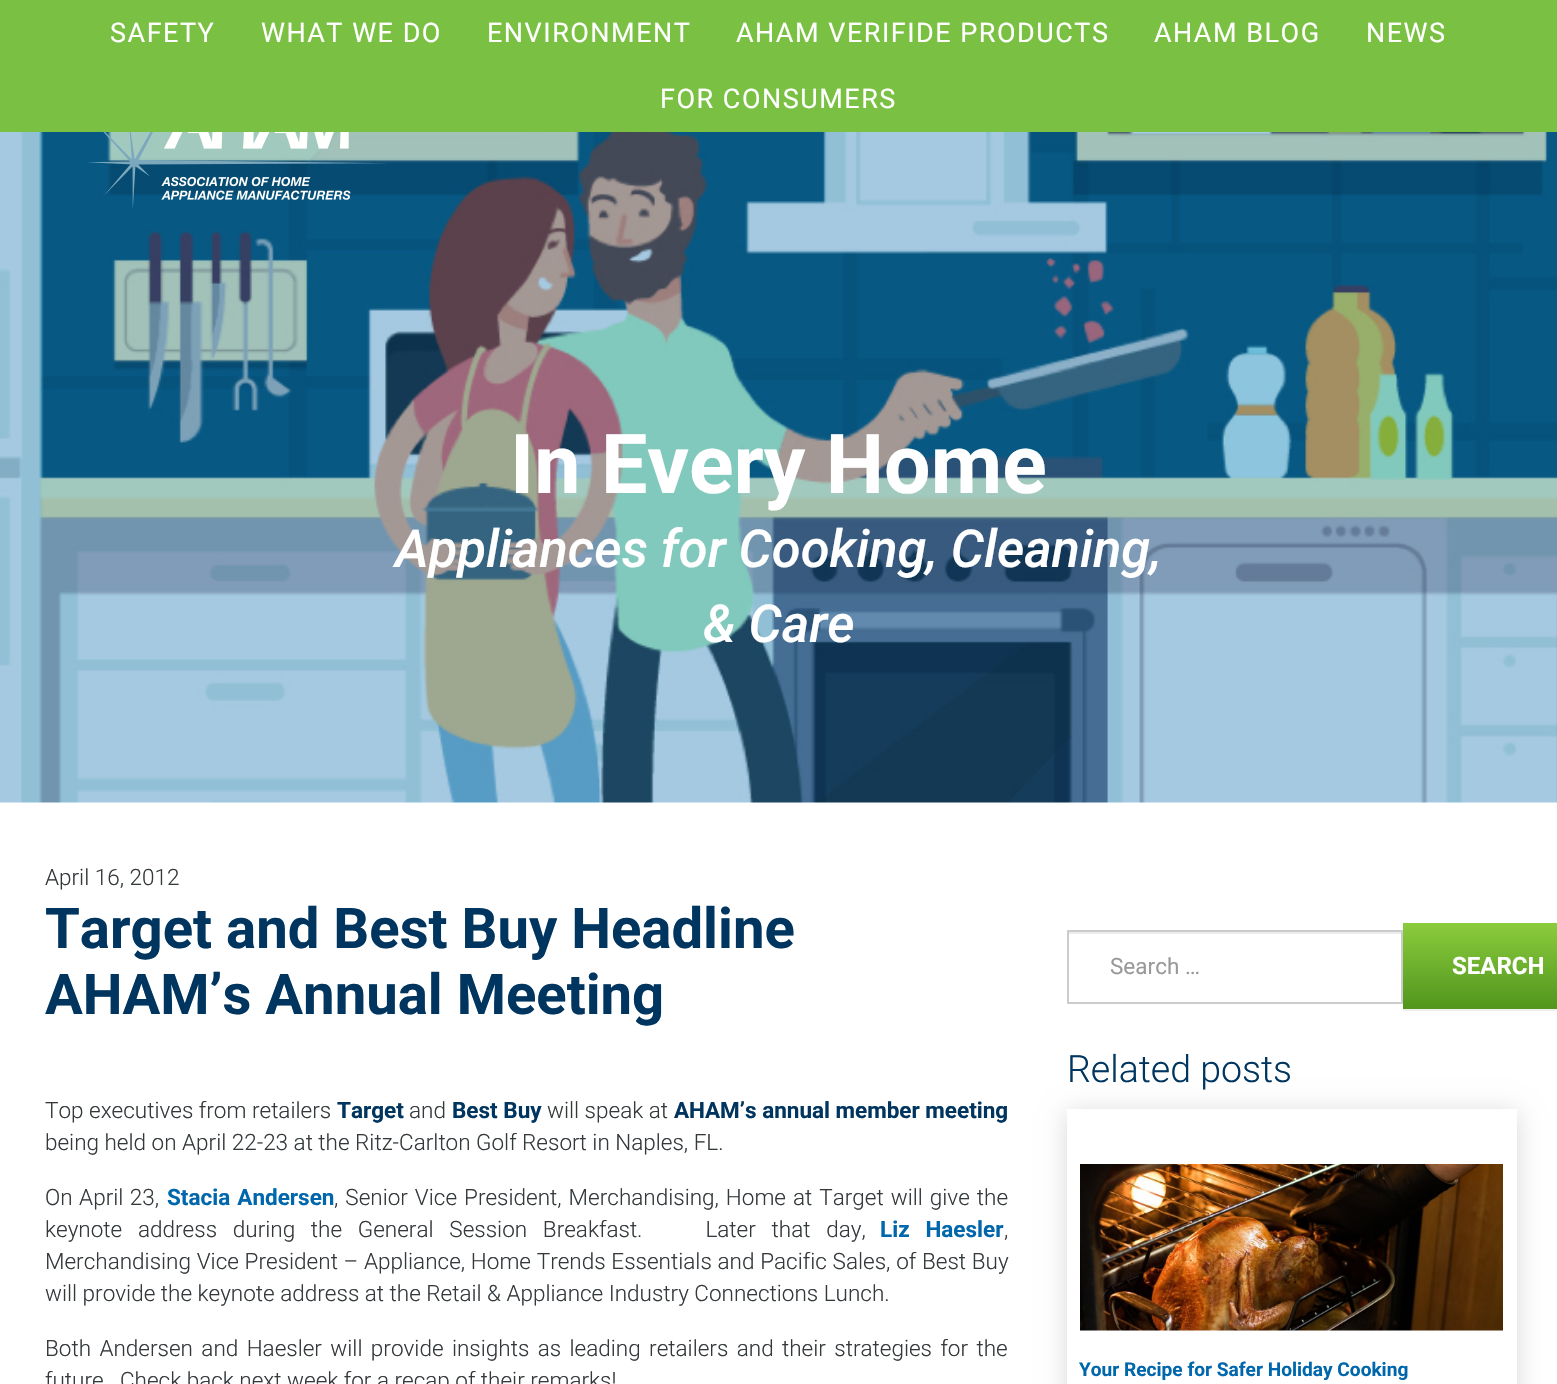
#include "include/core/SkBlurTypes.h"
#include "include/core/SkCanvas.h"
#include "include/core/SkData.h"
#include "include/core/SkFont.h"
#include "include/core/SkFontMgr.h"
#include "include/core/SkImage.h"
#include "include/core/SkMaskFilter.h"
#include "include/core/SkPaint.h"
#include "include/core/SkPathBuilder.h"
#include "include/core/SkTextBlob.h"
#include "include/effects/SkDashPathEffect.h"
#include "include/effects/SkGradientShader.h"
#include "include/utils/SkParsePath.h"

extern sk_sp<SkFontMgr> fontMgr;

void draw(SkCanvas* canvas) {
  SkPaint p;
  p.setAntiAlias(true);
  auto spacedText = [&](const char* s, float x, float y, const SkFont& font, const SkPaint& ink, float letter, float word) {
    std::vector<SkGlyphID> glyphs(font.countText(s, strlen(s), SkTextEncoding::kUTF8));
    std::vector<float> xs(glyphs.size());
    font.textToGlyphs(s, strlen(s), SkTextEncoding::kUTF8, glyphs);
    font.getXPos(glyphs, xs, x);
    float extra = 0;
    for (size_t i = 0; i < glyphs.size(); i++) {
      xs[i] += extra;
      extra += letter + word * (glyphs[i] == font.unicharToGlyph(' '));
    }
    canvas->drawTextBlob(SkTextBlob::MakeFromPosHGlyphs(glyphs, xs, y, font), 0, 0, ink);
  };
  canvas->clear(SK_ColorWHITE);
  p.setColor(SkColorSetRGB(122, 193, 67));
  canvas->drawRect(SkRect::MakeLTRB(0, 0, 1557, 132), p);
  canvas->drawImageRect(SkImages::DeferredFromEncodedData(SkData::MakeFromFileName("images/1.png")), SkRect::MakeLTRB(0, 132, 1557, 803), SkSamplingOptions());
  canvas->drawImageRect(SkImages::DeferredFromEncodedData(SkData::MakeFromFileName("images/2.png")), SkRect::MakeLTRB(88, 132, 385, 209), SkSamplingOptions());
  p.setColor(SkColorSetRGB(236, 236, 236));
  canvas->drawRect(SkRect::MakeLTRB(1068, 932, 1401, 934), p);
  p.setStyle(SkPaint::kStroke_Style);
  p.setStrokeWidth(2);
  p.setColor(SkColorSetRGB(204, 204, 204));
  canvas->drawRect(SkRect::MakeLTRB(1068, 931, 1402, 1003), p);
  p.setStyle(SkPaint::kFill_Style);
  p.setColor(SkColorSetRGB(239, 239, 239));
  canvas->drawRect(SkRect::MakeLTRB(1403, 1009, 1557, 1011), p);
  {
    const SkColor colors[] = {SkColorSetRGB(139, 204, 61), SkColorSetRGB(81, 149, 29)};
    const float stops[] = {0, 1};
    const SkPoint ends[] = {{1497, 923}, {1497, 1009}};
    p.setShader(SkGradientShader::MakeLinear(ends, colors, stops, 2, SkTileMode::kClamp));
    p.setAlpha(255);
  }
  canvas->drawRect(SkRect::MakeLTRB(1403, 923, 1557, 1009), p);
  p.setShader(nullptr);
  p.setColor(SkColorSetARGB(38, 0, 0, 0));
  p.setMaskFilter(SkMaskFilter::MakeBlur(kNormal_SkBlurStyle, 12));
  canvas->drawRect(SkRect::MakeLTRB(1067, 1112, 1517, 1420), p);
  p.setMaskFilter(nullptr);
  p.setColor(SK_ColorWHITE);
  canvas->drawRect(SkRect::MakeLTRB(1067, 1109, 1517, 1384), p);
  canvas->drawImageRect(SkImages::DeferredFromEncodedData(SkData::MakeFromFileName("images/3.png")), SkRect::MakeLTRB(1080, 1164, 1503, 1331), SkSamplingOptions());
  SkFont font1(fontMgr->matchFamilyStyle("Roboto", SkFontStyle::Normal()), 27);
  font1.setSubpixel(true);
  spacedText("SAFETY", 110, 42, font1, p, 1.5f, 0);
  spacedText("WHAT WE DO", 261, 42, font1, p, 1.5f, 0);
  spacedText("ENVIRONMENT", 487, 42, font1, p, 1.5f, 0);
  spacedText("AHAM VERIFIDE PRODUCTS", 736, 42, font1, p, 1.5f, 0);
  spacedText("AHAM BLOG", 1154, 42, font1, p, 1.5f, 0);
  spacedText("NEWS", 1366, 42, font1, p, 1.5f, 0);
  spacedText("FOR CONSUMERS", 660, 108, font1, p, 1.5f, 0);
  SkFont font2(fontMgr->matchFamilyStyle("Roboto", SkFontStyle::Bold()), 82.5f);
  font2.setSubpixel(true);
  canvas->drawString("In Every Home", 510, 493, font2, p);
  SkFont font3(fontMgr->matchFamilyStyle("Roboto", SkFontStyle(500, SkFontStyle::kNormal_Width, SkFontStyle::kItalic_Slant)), 52.5f);
  font3.setSubpixel(true);
  canvas->drawString("Appliances for Cooking, Cleaning,", 395, 567, font3, p);
  canvas->drawString("& Care", 703, 642, font3, p);
  SkFont font4(fontMgr->matchFamilyStyle("Roboto", SkFontStyle(300, SkFontStyle::kNormal_Width, SkFontStyle::kUpright_Slant)), 22.5f);
  font4.setSubpixel(true);
  p.setColor(SkColorSetRGB(52, 57, 60));
  canvas->drawString("April 16, 2012", 45, 885, font4, p);
  SkFont font5(fontMgr->matchFamilyStyle("Roboto", SkFontStyle::Bold()), 56.25f);
  font5.setSubpixel(true);
  p.setColor(SkColorSetRGB(0, 53, 95));
  canvas->drawString("Target and Best Buy Headline", 45, 948, font5, p);
  canvas->drawString("AHAM’s Annual Meeting", 45, 1014, font5, p);
  p.setColor(SkColorSetRGB(52, 57, 60));
  canvas->drawString("Top executives from retailers", 45, 1118, font4, p);
  SkFont font6(fontMgr->matchFamilyStyle("Roboto", SkFontStyle::Bold()), 22.5f);
  font6.setSubpixel(true);
  p.setColor(SkColorSetRGB(0, 53, 95));
  canvas->drawString("Target", 337, 1118, font6, p);
  p.setColor(SkColorSetRGB(52, 57, 60));
  canvas->drawString("and", 409, 1118, font4, p);
  p.setColor(SkColorSetRGB(0, 53, 95));
  canvas->drawString("Best Buy", 452, 1118, font6, p);
  p.setColor(SkColorSetRGB(52, 57, 60));
  canvas->drawString("will speak at", 547, 1118, font4, p);
  p.setColor(SkColorSetRGB(0, 53, 95));
  canvas->drawString("AHAM’s annual member meeting", 674, 1118, font6, p);
  p.setColor(SkColorSetRGB(52, 57, 60));
  canvas->drawString("being held on April 22-23 at the Ritz-Carlton Golf Resort in Naples, FL.", 45, 1150, font4, p);
  spacedText("On April 23,", 45, 1205, font4, p, 0, 1);
  p.setColor(SkColorSetRGB(0, 103, 172));
  spacedText("Stacia Andersen", 167, 1205, font6, p, 0, 1.5f);
  p.setColor(SkColorSetRGB(52, 57, 60));
  spacedText(", Senior Vice President, Merchandising, Home at Target will give the", 334, 1205, font4, p, 0, 1.5f);
  spacedText("keynote address during the General Session Breakfast.    Later that day,", 45, 1237, font4, p, 0, 10.25f);
  p.setColor(SkColorSetRGB(0, 103, 172));
  spacedText("Liz Haesler", 880, 1237, font6, p, 0, 10.25f);
  p.setColor(SkColorSetRGB(52, 57, 60));
  canvas->drawString(",", 1004, 1237, font4, p);
  spacedText("Merchandising Vice President – Appliance, Home Trends Essentials and Pacific Sales, of Best Buy", 45, 1269, font4, p, 0, 0.25f);
  canvas->drawString("will provide the keynote address at the Retail & Appliance Industry Connections Lunch.", 45, 1301, font4, p);
  spacedText("Both Andersen and Haesler will provide insights as leading retailers and their strategies for the", 45, 1356, font4, p, 0, 2.9f);
  canvas->drawString("future.  Check back next week for a recap of their remarks!", 45, 1388, font4, p);
  SkFont font7(fontMgr->matchFamilyStyle("Roboto", SkFontStyle::Normal()), 22.5f);
  font7.setSubpixel(true);
  p.setColor(SkColorSetRGB(153, 153, 153));
  canvas->drawString("Search …", 1110, 974, font7, p);
  SkFont font8(fontMgr->matchFamilyStyle("Roboto", SkFontStyle::Bold()), 24);
  font8.setSubpixel(true);
  p.setColor(SK_ColorWHITE);
  canvas->drawString("SEARCH", 1452, 974, font8, p);
  SkFont font9(fontMgr->matchFamilyStyle("Roboto", SkFontStyle(300, SkFontStyle::kNormal_Width, SkFontStyle::kUpright_Slant)), 37.5f);
  font9.setSubpixel(true);
  p.setColor(SkColorSetRGB(0, 53, 95));
  canvas->drawString("Related posts", 1067, 1082, font9, p);
  SkFont font10(fontMgr->matchFamilyStyle("Roboto", SkFontStyle::Bold()), 19.1f);
  font10.setSubpixel(true);
  p.setColor(SkColorSetRGB(0, 103, 172));
  canvas->drawString("Your Recipe for Safer Holiday Cooking", 1079, 1376, font10, p);
}
